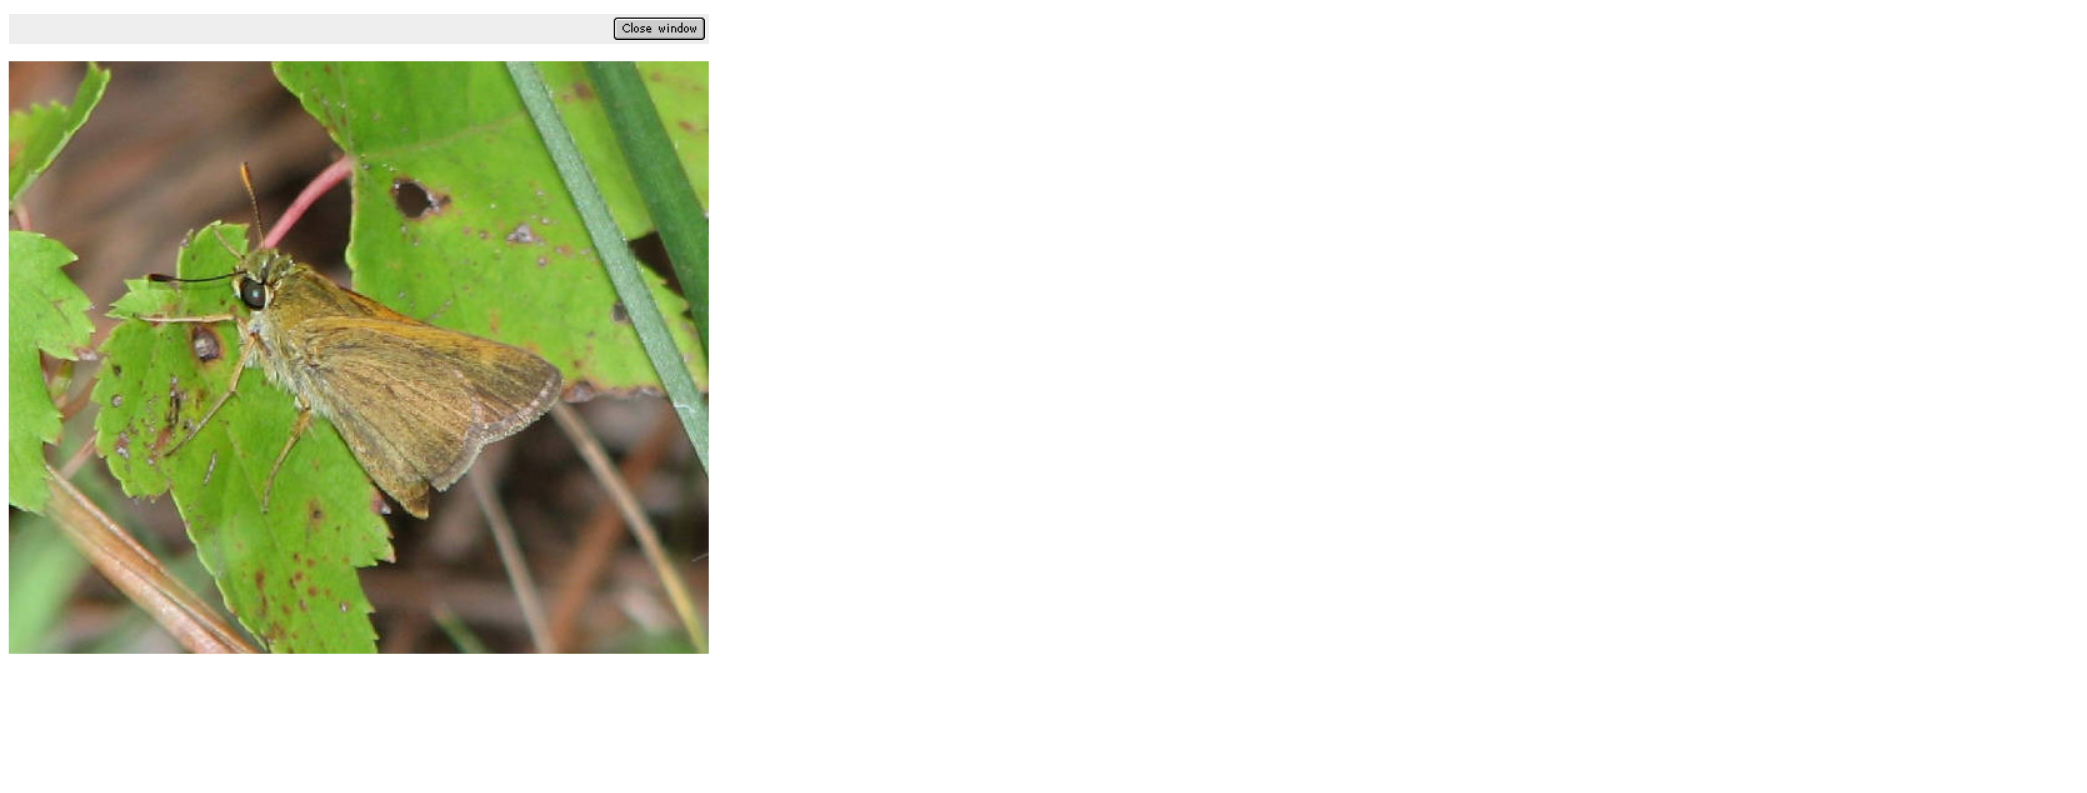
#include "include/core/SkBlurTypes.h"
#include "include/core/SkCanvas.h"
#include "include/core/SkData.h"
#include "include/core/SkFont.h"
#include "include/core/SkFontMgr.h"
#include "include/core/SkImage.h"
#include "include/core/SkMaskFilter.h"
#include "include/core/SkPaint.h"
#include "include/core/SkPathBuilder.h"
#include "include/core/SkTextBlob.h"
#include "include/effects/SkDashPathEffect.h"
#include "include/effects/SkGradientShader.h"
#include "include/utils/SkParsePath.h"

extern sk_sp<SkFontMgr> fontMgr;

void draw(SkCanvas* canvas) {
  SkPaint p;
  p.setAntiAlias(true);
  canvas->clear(SK_ColorWHITE);
  p.setColor(SkColorSetRGB(238, 238, 238));
  canvas->drawRect(SkRect::MakeLTRB(9, 14, 709, 44), p);
  canvas->drawImageRect(SkImages::DeferredFromEncodedData(SkData::MakeFromFileName("images/1.png")), SkRect::MakeLTRB(613, 17, 705, 40), SkSamplingOptions());
  canvas->drawImageRect(SkImages::DeferredFromEncodedData(SkData::MakeFromFileName("images/2.png")), SkRect::MakeLTRB(8, 61, 709, 654), SkSamplingOptions());
}
